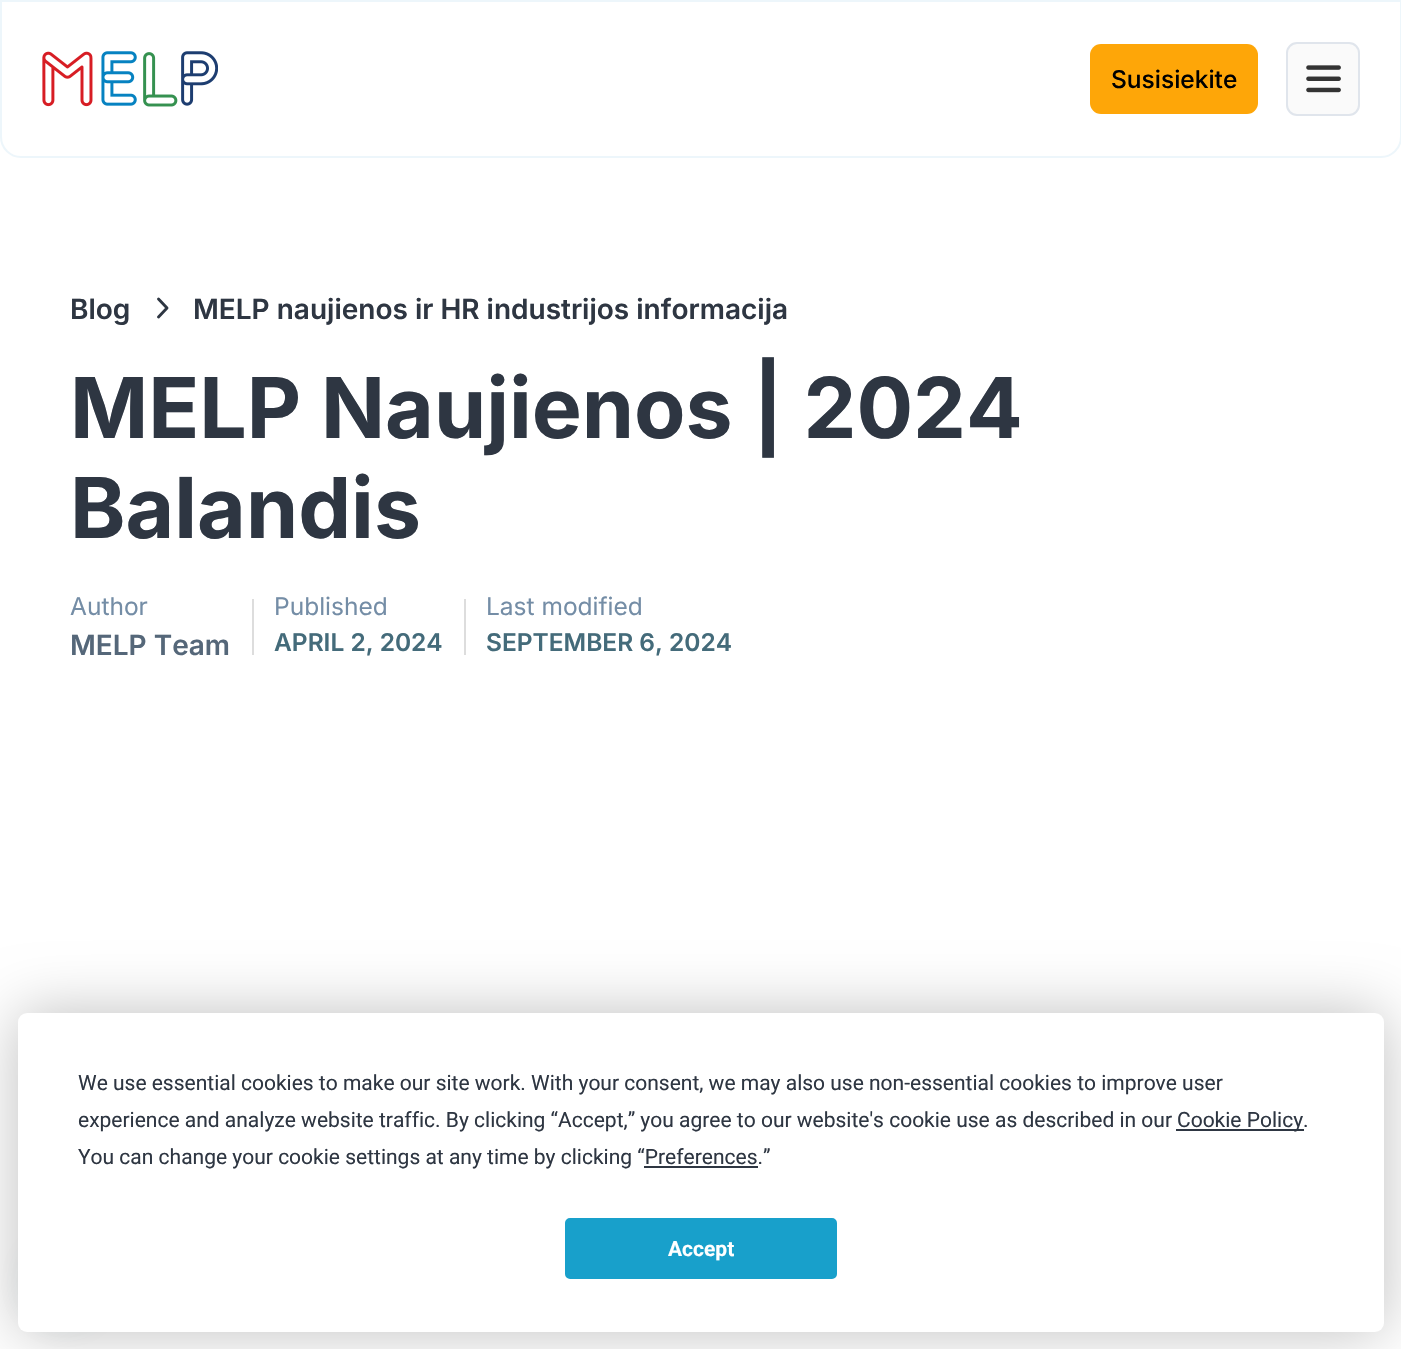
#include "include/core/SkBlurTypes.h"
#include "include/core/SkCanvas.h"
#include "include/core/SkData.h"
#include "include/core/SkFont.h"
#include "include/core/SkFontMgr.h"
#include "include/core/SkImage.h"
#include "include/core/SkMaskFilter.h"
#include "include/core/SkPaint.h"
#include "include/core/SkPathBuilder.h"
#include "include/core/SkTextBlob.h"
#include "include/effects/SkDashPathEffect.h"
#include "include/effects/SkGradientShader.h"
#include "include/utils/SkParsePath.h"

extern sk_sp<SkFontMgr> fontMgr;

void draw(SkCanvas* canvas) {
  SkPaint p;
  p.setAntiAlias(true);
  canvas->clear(SK_ColorWHITE);
  p.setStyle(SkPaint::kStroke_Style);
  p.setStrokeWidth(2);
  p.setColor(SkColorSetRGB(237, 246, 251));
  canvas->drawPath(SkPathBuilder().moveTo(1, 1).lineTo(1401, 1).lineTo(1401, 137).cubicTo(1401, 148, 1392, 157, 1381, 157).lineTo(21, 157).cubicTo(10, 157, 1, 148, 1, 137).close().detach(), p);
  canvas->drawImageRect(SkImages::DeferredFromEncodedData(SkData::MakeFromFileName("images/1.png")), SkRect::MakeLTRB(42, 51, 218, 107), SkSamplingOptions());
  p.setStyle(SkPaint::kFill_Style);
  p.setColor(SkColorSetRGB(254, 166, 8));
  canvas->drawRoundRect(SkRect::MakeLTRB(1090, 44, 1258, 114), 11, 11, p);
  p.setColor(SkColorSetRGB(250, 250, 250));
  canvas->drawRoundRect(SkRect::MakeLTRB(1287, 43, 1359, 115), 10, 10, p);
  p.setStyle(SkPaint::kStroke_Style);
  p.setColor(SkColorSetRGB(224, 229, 236));
  canvas->drawRoundRect(SkRect::MakeLTRB(1287, 43, 1359, 115), 10, 10, p);
  canvas->drawImageRect(SkImages::DeferredFromEncodedData(SkData::MakeFromFileName("images/2.png")), SkRect::MakeLTRB(1306, 65, 1341, 93), SkSamplingOptions());
  p.setStrokeWidth(2.9f);
  p.setStrokeCap(SkPaint::kRound_Cap);
  p.setStrokeJoin(SkPaint::kRound_Join);
  p.setColor(SkColorSetRGB(46, 54, 66));
  canvas->drawPath(SkPathBuilder().moveTo(158.5f, 317).lineTo(167, 308).lineTo(158.5f, 299).detach(), p);
  p.setStyle(SkPaint::kFill_Style);
  p.setColor(SkColorSetRGB(221, 221, 221));
  canvas->drawRect(SkRect::MakeLTRB(252, 599, 254, 655), p);
  canvas->drawRect(SkRect::MakeLTRB(464, 599, 466, 655), p);
  p.setColor(SkColorSetARGB(64, 0, 0, 0));
  p.setMaskFilter(SkMaskFilter::MakeBlur(kNormal_SkBlurStyle, 30.5f));
  canvas->drawRoundRect(SkRect::MakeLTRB(18, 1013, 1384, 1332), 9, 9, p);
  p.setMaskFilter(nullptr);
  p.setColor(SkColorSetARGB(26, 5, 115, 124));
  p.setMaskFilter(SkMaskFilter::MakeBlur(kNormal_SkBlurStyle, 17.5f));
  canvas->drawRoundRect(SkRect::MakeLTRB(28, 1244, 102, 1321), 37, 37, p);
  p.setMaskFilter(nullptr);
  p.setColor(SK_ColorWHITE);
  canvas->drawRoundRect(SkRect::MakeLTRB(18, 1013, 1384, 1332), 9, 9, p);
  p.setColor(SkColorSetRGB(46, 54, 66));
  canvas->drawRect(SkRect::MakeLTRB(1176, 1129, 1304, 1131), p);
  canvas->drawRect(SkRect::MakeLTRB(644, 1166, 758, 1168), p);
  p.setColor(SkColorSetRGB(24, 160, 203));
  canvas->drawRoundRect(SkRect::MakeLTRB(566, 1219, 836, 1278), 4, 4, p);
  p.setStyle(SkPaint::kStroke_Style);
  p.setStrokeWidth(2);
  p.setStrokeCap(SkPaint::kButt_Cap);
  p.setStrokeJoin(SkPaint::kMiter_Join);
  canvas->drawRoundRect(SkRect::MakeLTRB(566, 1219, 836, 1278), 4, 4, p);
  SkFont font1(fontMgr->matchFamilyStyle("Inter", SkFontStyle(500, SkFontStyle::kNormal_Width, SkFontStyle::kUpright_Slant)), 24.5f);
  font1.setSubpixel(true);
  p.setStyle(SkPaint::kFill_Style);
  p.setColor(SK_ColorBLACK);
  canvas->drawString("Susisiekite", 1111, 88, font1, p);
  SkFont font2(fontMgr->matchFamilyStyle("Inter", SkFontStyle(600, SkFontStyle::kNormal_Width, SkFontStyle::kUpright_Slant)), 28);
  font2.setSubpixel(true);
  p.setColor(SkColorSetRGB(46, 54, 66));
  canvas->drawString("Blog", 70, 319, font2, p);
  canvas->drawString("MELP naujienos ir HR industrijos informacija", 193, 319, font2, p);
  SkFont font3(fontMgr->matchFamilyStyle("Inter", SkFontStyle::Bold()), 84);
  font3.setSubpixel(true);
  canvas->drawString("MELP Naujienos | 2024", 70, 438, font3, p);
  canvas->drawString("Balandis", 70, 538, font3, p);
  SkFont font4(fontMgr->matchFamilyStyle("Inter", SkFontStyle::Normal()), 24.5f);
  font4.setSubpixel(true);
  p.setColor(SkColorSetRGB(116, 141, 166));
  canvas->drawString("Author", 70, 615, font4, p);
  p.setColor(SkColorSetRGB(85, 103, 121));
  canvas->drawString("MELP Team", 70, 655, font2, p);
  p.setColor(SkColorSetRGB(116, 141, 166));
  canvas->drawString("Published", 274, 615, font4, p);
  SkFont font5(fontMgr->matchFamilyStyle("Inter", SkFontStyle(600, SkFontStyle::kNormal_Width, SkFontStyle::kUpright_Slant)), 24.5f);
  font5.setSubpixel(true);
  p.setColor(SkColorSetRGB(68, 107, 122));
  canvas->drawString("APRIL 2, 2024", 274, 651, font5, p);
  p.setColor(SkColorSetRGB(116, 141, 166));
  canvas->drawString("Last modified", 486, 615, font4, p);
  p.setColor(SkColorSetRGB(68, 107, 122));
  canvas->drawString("SEPTEMBER 6, 2024", 486, 651, font5, p);
  SkFont font6(fontMgr->matchFamilyStyle("Roboto", SkFontStyle::Normal()), 21);
  font6.setSubpixel(true);
  p.setColor(SkColorSetRGB(46, 54, 66));
  canvas->drawString("We use essential cookies to make our site work. With your consent, we may also use non-essential cookies to improve user", 78, 1090, font6, p);
  canvas->drawString("experience and analyze website traffic. By clicking “Accept,” you agree to our website's cookie use as described in our", 78, 1127, font6, p);
  canvas->drawString("Cookie Policy.", 1177, 1127, font6, p);
  canvas->drawString("You can change your cookie settings at any time by clicking “Preferences.”", 78, 1164, font6, p);
  SkFont font7(fontMgr->matchFamilyStyle("Roboto", SkFontStyle::Bold()), 21);
  font7.setSubpixel(true);
  p.setColor(SK_ColorWHITE);
  canvas->drawString("Accept", 668, 1256, font7, p);
}
